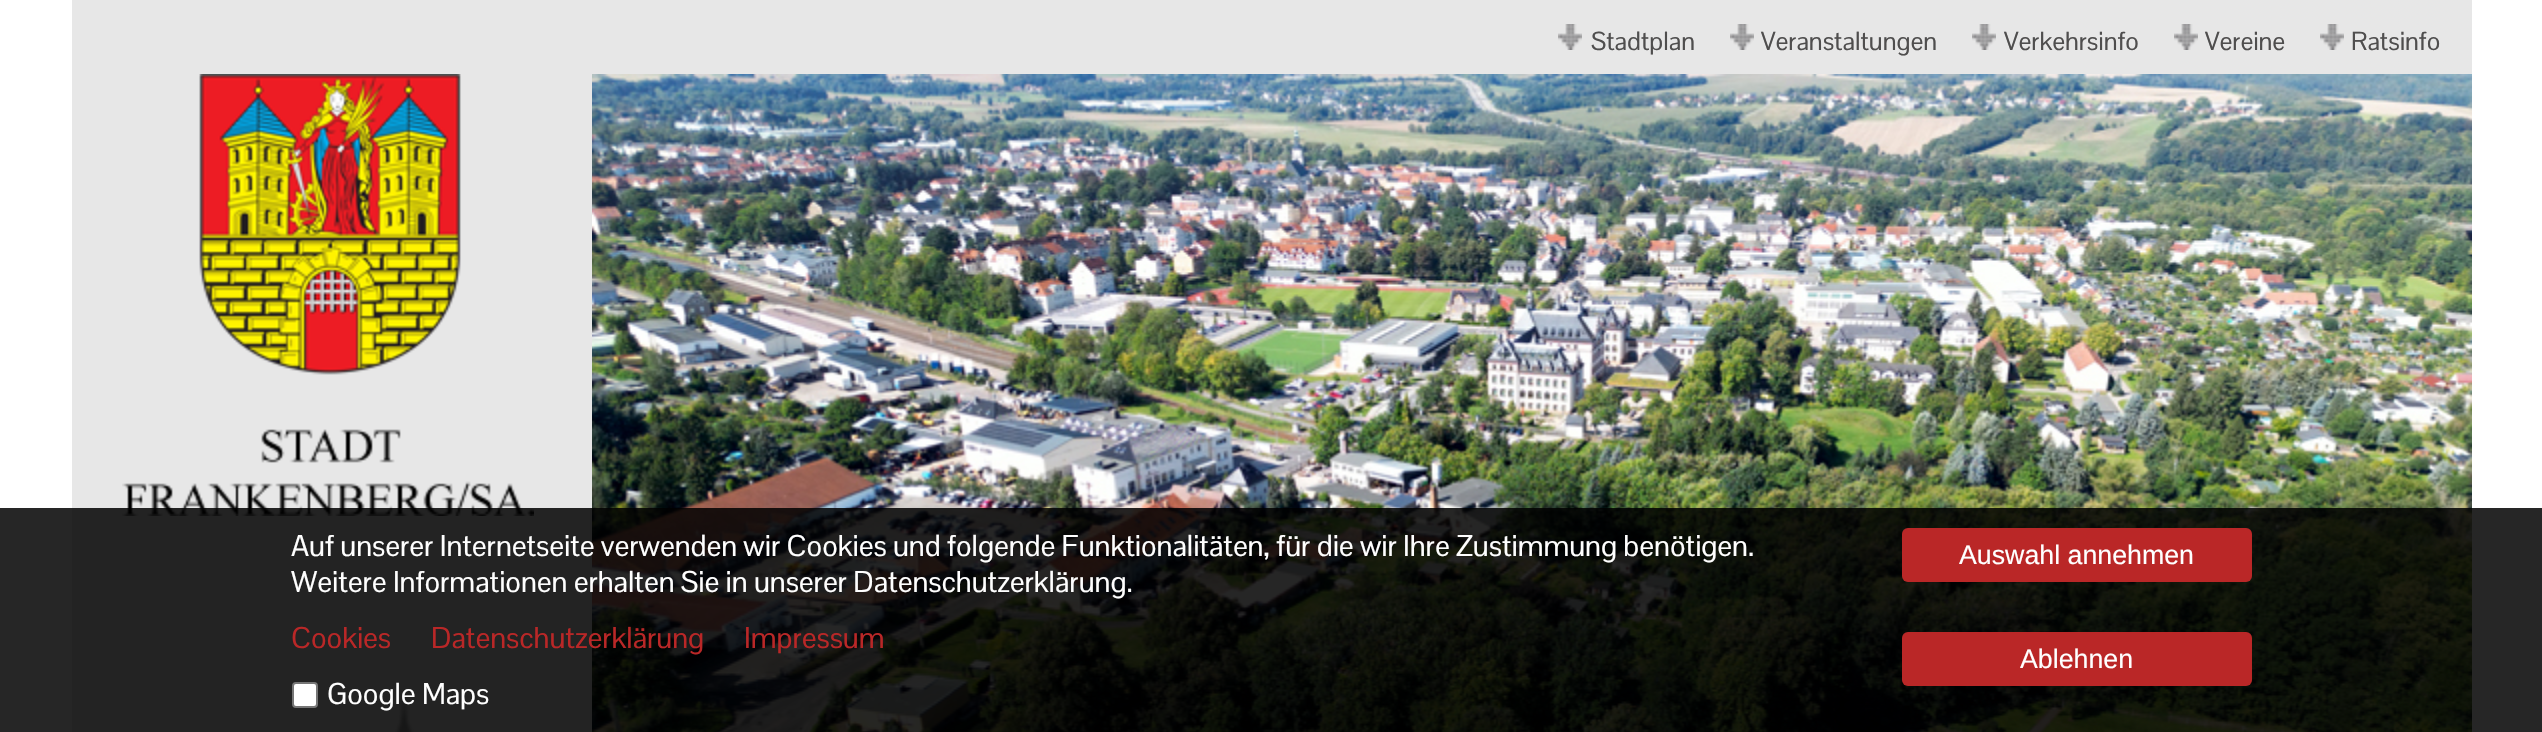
#include "include/core/SkBlurTypes.h"
#include "include/core/SkCanvas.h"
#include "include/core/SkData.h"
#include "include/core/SkFont.h"
#include "include/core/SkFontMgr.h"
#include "include/core/SkImage.h"
#include "include/core/SkMaskFilter.h"
#include "include/core/SkPaint.h"
#include "include/core/SkPathBuilder.h"
#include "include/core/SkTextBlob.h"
#include "include/effects/SkDashPathEffect.h"
#include "include/effects/SkGradientShader.h"
#include "include/utils/SkParsePath.h"

extern sk_sp<SkFontMgr> fontMgr;

void draw(SkCanvas* canvas) {
  SkPaint p;
  p.setAntiAlias(true);
  canvas->clear(SK_ColorWHITE);
  p.setColor(SkColorSetRGB(231, 231, 231));
  canvas->drawRect(SkRect::MakeLTRB(72, 0, 2472, 74), p);
  canvas->drawImageRect(SkImages::DeferredFromEncodedData(SkData::MakeFromFileName("images/1.png")), SkRect::MakeLTRB(1558, 24, 1582, 50), SkSamplingOptions());
  canvas->drawImageRect(SkImages::DeferredFromEncodedData(SkData::MakeFromFileName("images/1.png")), SkRect::MakeLTRB(1730, 24, 1754, 50), SkSamplingOptions());
  canvas->drawImageRect(SkImages::DeferredFromEncodedData(SkData::MakeFromFileName("images/1.png")), SkRect::MakeLTRB(1972, 24, 1996, 50), SkSamplingOptions());
  canvas->drawImageRect(SkImages::DeferredFromEncodedData(SkData::MakeFromFileName("images/1.png")), SkRect::MakeLTRB(2174, 24, 2198, 50), SkSamplingOptions());
  canvas->drawImageRect(SkImages::DeferredFromEncodedData(SkData::MakeFromFileName("images/1.png")), SkRect::MakeLTRB(2320, 24, 2344, 50), SkSamplingOptions());
  canvas->drawRect(SkRect::MakeLTRB(72, 74, 592, 732), p);
  canvas->drawImageRect(SkImages::DeferredFromEncodedData(SkData::MakeFromFileName("images/2.png")), SkRect::MakeLTRB(395, 693, 414, 732), SkSamplingOptions());
  canvas->drawImageRect(SkImages::DeferredFromEncodedData(SkData::MakeFromFileName("images/3.png")), SkRect::MakeLTRB(122, 74, 534, 516), SkSamplingOptions());
  canvas->drawImageRect(SkImages::DeferredFromEncodedData(SkData::MakeFromFileName("images/4.png")), SkRect::MakeLTRB(592, 74, 2472, 732), SkSamplingOptions());
  p.setColor(SkColorSetARGB(217, 0, 0, 0));
  canvas->drawRect(SkRect::MakeLTRB(0, 508, 2542, 732), p);
  p.setColor(SK_ColorWHITE);
  canvas->drawRoundRect(SkRect::MakeLTRB(293, 683, 317, 707), 3, 3, p);
  p.setStyle(SkPaint::kStroke_Style);
  p.setStrokeWidth(2);
  p.setColor(SkColorSetRGB(118, 118, 118));
  canvas->drawRoundRect(SkRect::MakeLTRB(293, 683, 317, 707), 3, 3, p);
  p.setStyle(SkPaint::kFill_Style);
  p.setColor(SkColorSetRGB(186, 39, 39));
  canvas->drawRoundRect(SkRect::MakeLTRB(1902, 528, 2252, 582), 6, 6, p);
  canvas->drawRoundRect(SkRect::MakeLTRB(1902, 632, 2252, 686), 6, 6, p);
  SkFont font1(fontMgr->matchFamilyStyle("Pontano Sans", SkFontStyle::Normal()), 25.5f);
  font1.setSubpixel(true);
  p.setColor(SkColorSetRGB(79, 78, 78));
  canvas->drawString("Stadtplan", 1591, 50, font1, p);
  canvas->drawString("Veranstaltungen", 1761, 50, font1, p);
  canvas->drawString("Verkehrsinfo", 2004, 50, font1, p);
  canvas->drawString("Vereine", 2205, 50, font1, p);
  canvas->drawString("Ratsinfo", 2351, 50, font1, p);
  SkFont font2(fontMgr->matchFamilyStyle("Pontano Sans", SkFontStyle::Normal()), 29.35f);
  font2.setSubpixel(true);
  p.setColor(SK_ColorWHITE);
  canvas->drawString("Auf unserer Internetseite verwenden wir Cookies und folgende Funktionalitäten, für die wir Ihre Zustimmung benötigen.", 291, 556, font2, p);
  canvas->drawString("Weitere Informationen erhalten Sie in unserer Datenschutzerklärung.", 291, 592, font2, p);
  p.setColor(SkColorSetRGB(186, 39, 39));
  canvas->drawString("Cookies", 291, 648, font2, p);
  canvas->drawString("Datenschutzerklärung", 431, 648, font2, p);
  canvas->drawString("Impressum", 744, 648, font2, p);
  p.setColor(SK_ColorWHITE);
  canvas->drawString("Google Maps", 327, 704, font2, p);
  SkFont font3(fontMgr->matchFamilyStyle("Liberation Sans", SkFontStyle::Normal()), 26.75f);
  font3.setSubpixel(true);
  canvas->drawString("Auswahl annehmen", 1959, 564, font3, p);
  canvas->drawString("Ablehnen", 2020, 668, font3, p);
}
